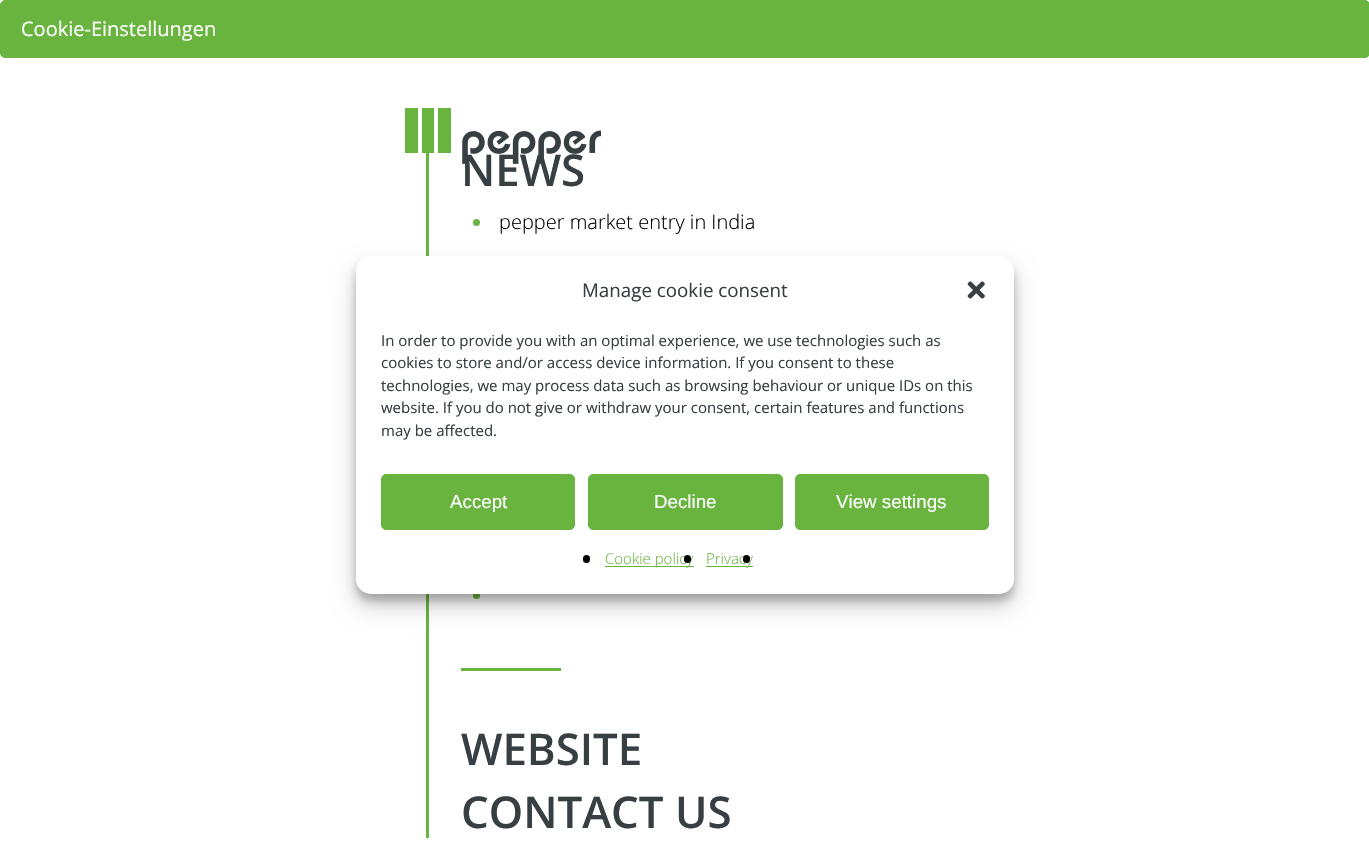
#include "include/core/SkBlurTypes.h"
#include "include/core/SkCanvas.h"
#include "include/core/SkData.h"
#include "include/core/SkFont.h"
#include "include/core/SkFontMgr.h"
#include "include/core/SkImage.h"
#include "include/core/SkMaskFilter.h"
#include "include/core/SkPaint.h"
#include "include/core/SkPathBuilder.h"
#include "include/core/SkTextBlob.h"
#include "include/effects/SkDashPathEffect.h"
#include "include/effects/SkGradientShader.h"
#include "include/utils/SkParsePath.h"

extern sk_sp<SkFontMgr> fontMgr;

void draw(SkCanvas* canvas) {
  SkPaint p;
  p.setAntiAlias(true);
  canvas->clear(SK_ColorWHITE);
  p.setColor(SkColorSetRGB(105, 180, 63));
  canvas->drawRoundRect(SkRect::MakeLTRB(0.5f, 0.5f, 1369.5f, 57.5f), 4.5f, 4.5f, p);
  p.setStyle(SkPaint::kStroke_Style);
  p.setStrokeWidth(1);
  canvas->drawRoundRect(SkRect::MakeLTRB(0.5f, 0.5f, 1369.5f, 57.5f), 4.5f, 4.5f, p);
  canvas->drawImageRect(SkImages::DeferredFromEncodedData(SkData::MakeFromFileName("images/1.png")), SkRect::MakeLTRB(405, 108, 601, 164), SkSamplingOptions());
  p.setStyle(SkPaint::kFill_Style);
  canvas->drawRect(SkRect::MakeLTRB(426, 153, 429, 838), p);
  canvas->drawCircle(476.5f, 222.5f, 3.5f, p);
  canvas->drawRoundRect(SkRect::MakeLTRB(473, 591, 480, 599), 3.5f, 3.5f, p);
  canvas->drawRect(SkRect::MakeLTRB(461, 668, 561, 671), p);
  p.setColor(SkColorSetARGB(59, 0, 0, 0));
  p.setMaskFilter(SkMaskFilter::MakeBlur(kNormal_SkBlurStyle, 4));
  canvas->drawRoundRect(SkRect::MakeLTRB(356, 264, 1014, 601), 15, 15, p);
  p.setMaskFilter(nullptr);
  p.setColor(SkColorSetARGB(48, 0, 0, 0));
  p.setMaskFilter(SkMaskFilter::MakeBlur(kNormal_SkBlurStyle, 12.5f));
  canvas->drawRoundRect(SkRect::MakeLTRB(356, 269, 1014, 606), 15, 15, p);
  p.setMaskFilter(nullptr);
  p.setColor(SK_ColorWHITE);
  canvas->drawRoundRect(SkRect::MakeLTRB(356, 256, 1014, 594), 15, 15, p);
  canvas->drawImageRect(SkImages::DeferredFromEncodedData(SkData::MakeFromFileName("images/2.png")), SkRect::MakeLTRB(967, 281, 985, 299), SkSamplingOptions());
  p.setColor(SkColorSetRGB(105, 180, 63));
  canvas->drawRoundRect(SkRect::MakeLTRB(381.5f, 474.5f, 574.5f, 529.5f), 4.5f, 4.5f, p);
  p.setStyle(SkPaint::kStroke_Style);
  canvas->drawRoundRect(SkRect::MakeLTRB(381.5f, 474.5f, 574.5f, 529.5f), 4.5f, 4.5f, p);
  p.setStyle(SkPaint::kFill_Style);
  canvas->drawRoundRect(SkRect::MakeLTRB(588.5f, 474.5f, 782.5f, 529.5f), 4.5f, 4.5f, p);
  p.setStyle(SkPaint::kStroke_Style);
  canvas->drawRoundRect(SkRect::MakeLTRB(588.5f, 474.5f, 782.5f, 529.5f), 4.5f, 4.5f, p);
  p.setStyle(SkPaint::kFill_Style);
  canvas->drawRoundRect(SkRect::MakeLTRB(795.5f, 474.5f, 988.5f, 529.5f), 4.5f, 4.5f, p);
  p.setStyle(SkPaint::kStroke_Style);
  canvas->drawRoundRect(SkRect::MakeLTRB(795.5f, 474.5f, 988.5f, 529.5f), 4.5f, 4.5f, p);
  p.setStyle(SkPaint::kFill_Style);
  p.setColor(SK_ColorBLACK);
  canvas->drawRoundRect(SkRect::MakeLTRB(583, 555, 590, 563), 3.5f, 3.5f, p);
  p.setColor(SkColorSetRGB(105, 180, 63));
  canvas->drawRect(SkRect::MakeLTRB(605, 566, 694, 567), p);
  canvas->drawRect(SkRect::MakeLTRB(706, 566, 753, 567), p);
  SkFont font1(fontMgr->matchFamilyStyle("Open Sans", SkFontStyle::Normal()), 20);
  font1.setSubpixel(true);
  p.setColor(SK_ColorWHITE);
  canvas->drawString("Cookie-Einstellungen", 21, 36, font1, p);
  SkFont font2(fontMgr->matchFamilyStyle("Open Sans", SkFontStyle(600, SkFontStyle::kNormal_Width, SkFontStyle::kUpright_Slant)), 43.75f);
  font2.setSubpixel(true);
  p.setColor(SkColorSetRGB(55, 63, 67));
  canvas->drawString("NEWS", 461, 186, font2, p);
  SkFont font3(fontMgr->matchFamilyStyle("Open Sans", SkFontStyle(300, SkFontStyle::kNormal_Width, SkFontStyle::kUpright_Slant)), 20);
  font3.setSubpixel(true);
  p.setColor(SK_ColorBLACK);
  canvas->drawString("pepper market entry in India", 499, 229, font3, p);
  p.setColor(SkColorSetRGB(55, 63, 67));
  canvas->drawString("WEBSITE", 461, 765, font2, p);
  canvas->drawString("CONTACT US", 461, 828, font2, p);
  SkFont font4(fontMgr->matchFamilyStyle("Open Sans", SkFontStyle::Normal()), 18.75f);
  font4.setSubpixel(true);
  canvas->drawString("Manage cookie consent", 582, 297, font4, p);
  SkFont font5(fontMgr->matchFamilyStyle("Open Sans", SkFontStyle::Normal()), 15);
  font5.setSubpixel(true);
  canvas->drawString("In order to provide you with an optimal experience, we use technologies such as", 381, 346, font5, p);
  canvas->drawString("cookies to store and/or access device information. If you consent to these", 381, 368, font5, p);
  canvas->drawString("technologies, we may process data such as browsing behaviour or unique IDs on this", 381, 391, font5, p);
  canvas->drawString("website. If you do not give or withdraw your consent, certain features and functions", 381, 413, font5, p);
  canvas->drawString("may be affected.", 381, 436, font5, p);
  SkFont font6(fontMgr->matchFamilyStyle("Liberation Sans", SkFontStyle::Normal()), 18.75f);
  font6.setSubpixel(true);
  p.setColor(SK_ColorWHITE);
  canvas->drawString("Accept", 450, 508, font6, p);
  canvas->drawString("Decline", 654, 508, font6, p);
  canvas->drawString("View settings", 836, 508, font6, p);
  SkFont font7(fontMgr->matchFamilyStyle("Open Sans", SkFontStyle(300, SkFontStyle::kNormal_Width, SkFontStyle::kUpright_Slant)), 15);
  font7.setSubpixel(true);
  p.setColor(SkColorSetRGB(105, 180, 63));
  canvas->drawString("Cookie policy", 605, 564, font7, p);
  p.setColor(SK_ColorBLACK);
  canvas->drawRoundRect(SkRect::MakeLTRB(684, 555, 691, 563), 3.5f, 3.5f, p);
  p.setColor(SkColorSetRGB(105, 180, 63));
  canvas->drawString("Privacy", 706, 564, font7, p);
  p.setColor(SK_ColorBLACK);
  canvas->drawRoundRect(SkRect::MakeLTRB(743, 555, 750, 563), 3.5f, 3.5f, p);
}
